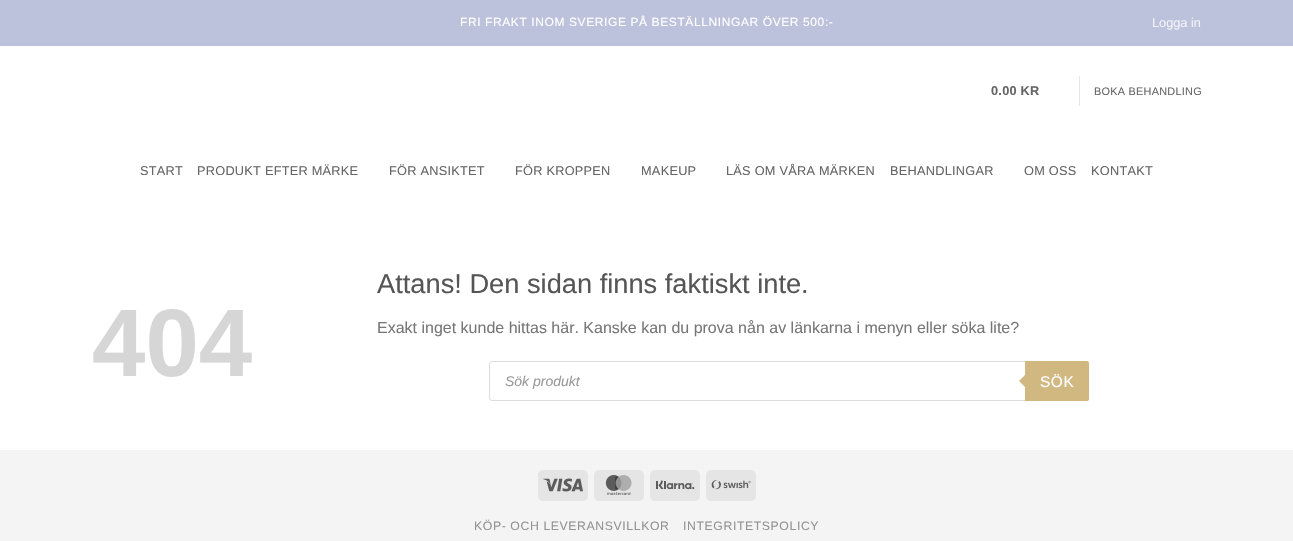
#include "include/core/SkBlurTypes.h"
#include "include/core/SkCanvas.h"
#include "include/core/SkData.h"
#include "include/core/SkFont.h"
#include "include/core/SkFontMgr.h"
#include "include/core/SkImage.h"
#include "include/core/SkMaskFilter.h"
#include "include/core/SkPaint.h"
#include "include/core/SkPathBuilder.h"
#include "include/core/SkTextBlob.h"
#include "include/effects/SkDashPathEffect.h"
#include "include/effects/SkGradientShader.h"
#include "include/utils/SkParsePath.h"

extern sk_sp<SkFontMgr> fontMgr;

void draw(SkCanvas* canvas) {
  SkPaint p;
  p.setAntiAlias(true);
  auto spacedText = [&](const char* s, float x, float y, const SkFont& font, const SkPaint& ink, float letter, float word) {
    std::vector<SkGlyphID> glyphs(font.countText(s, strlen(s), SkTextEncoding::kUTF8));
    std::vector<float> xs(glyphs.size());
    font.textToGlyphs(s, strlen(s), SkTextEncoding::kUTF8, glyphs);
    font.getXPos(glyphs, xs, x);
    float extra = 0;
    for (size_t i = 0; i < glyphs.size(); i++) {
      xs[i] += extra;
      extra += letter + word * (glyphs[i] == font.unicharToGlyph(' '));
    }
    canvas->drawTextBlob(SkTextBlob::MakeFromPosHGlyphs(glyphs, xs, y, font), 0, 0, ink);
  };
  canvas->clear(SK_ColorWHITE);
  p.setColor(SkColorSetRGB(188, 194, 219));
  canvas->drawRect(SkRect::MakeLTRB(0, 0, 1293, 46), p);
  p.setColor(SkColorSetRGB(230, 230, 230));
  canvas->drawRect(SkRect::MakeLTRB(1079, 76, 1080, 106), p);
  p.setStyle(SkPaint::kStroke_Style);
  p.setStrokeWidth(1);
  p.setColor(SkColorSetRGB(221, 221, 221));
  canvas->drawRoundRect(SkRect::MakeLTRB(489.5f, 361.5f, 1088.5f, 400.5f), 2.5f, 2.5f, p);
  p.setStyle(SkPaint::kFill_Style);
  p.setColor(SkColorSetRGB(209, 183, 128));
  canvas->drawPath(SkPathBuilder().moveTo(1025, 361).lineTo(1087, 361).cubicTo(1088, 361, 1089, 362, 1089, 363).lineTo(1089, 399).cubicTo(1089, 400, 1088, 401, 1087, 401).lineTo(1025, 401).close().detach(), p);
  canvas->drawPath(SkPathBuilder().moveTo(1027, 373).lineTo(1027, 389).lineTo(1019, 381).close().detach(), p);
  p.setColor(SkColorSetRGB(244, 244, 244));
  canvas->drawRect(SkRect::MakeLTRB(0, 450, 1293, 541), p);
  p.setColor(SkColorSetRGB(229, 229, 229));
  canvas->drawRoundRect(SkRect::MakeLTRB(538, 470, 588, 501), 5, 5, p);
  canvas->drawImageRect(SkImages::DeferredFromEncodedData(SkData::MakeFromFileName("images/1.png")), SkRect::MakeLTRB(543, 478, 583, 492), SkSamplingOptions());
  canvas->drawRoundRect(SkRect::MakeLTRB(594, 470, 644, 501), 5, 5, p);
  canvas->drawImageRect(SkImages::DeferredFromEncodedData(SkData::MakeFromFileName("images/2.png")), SkRect::MakeLTRB(605, 475, 632, 495), SkSamplingOptions());
  canvas->drawRoundRect(SkRect::MakeLTRB(650, 470, 700, 501), 5, 5, p);
  canvas->drawImageRect(SkImages::DeferredFromEncodedData(SkData::MakeFromFileName("images/3.png")), SkRect::MakeLTRB(656, 480, 695, 490), SkSamplingOptions());
  canvas->drawRoundRect(SkRect::MakeLTRB(706, 470, 756, 501), 5, 5, p);
  canvas->drawImageRect(SkImages::DeferredFromEncodedData(SkData::MakeFromFileName("images/4.png")), SkRect::MakeLTRB(711, 480, 751, 490), SkSamplingOptions());
  SkFont font1(fontMgr->matchFamilyStyle("Liberation Sans", SkFontStyle::Normal()), 12);
  font1.setSubpixel(true);
  p.setColor(SK_ColorWHITE);
  spacedText("FRI FRAKT INOM SVERIGE PÅ BESTÄLLNINGAR ÖVER 500:-", 460, 26, font1, p, 0.6f, 0);
  SkFont font2(fontMgr->matchFamilyStyle("Liberation Sans", SkFontStyle::Normal()), 12.75f);
  font2.setSubpixel(true);
  p.setColor(SkColorSetRGB(242, 243, 248));
  canvas->drawString("Logga in", 1152, 27, font2, p);
  SkFont font3(fontMgr->matchFamilyStyle("Liberation Sans", SkFontStyle::Bold()), 12.75f);
  font3.setSubpixel(true);
  p.setColor(SkColorSetRGB(101, 101, 101));
  spacedText("0.00 KR", 991, 95, font3, p, 0.25f, 0);
  SkFont font4(fontMgr->matchFamilyStyle("Liberation Sans", SkFontStyle::Normal()), 10.9f);
  font4.setSubpixel(true);
  spacedText("BOKA BEHANDLING", 1094, 95, font4, p, 0.25f, 0);
  spacedText("START", 140, 175, font2, p, 0.25f, 0);
  spacedText("PRODUKT EFTER MÄRKE", 197, 175, font2, p, 0.25f, 0);
  spacedText("FÖR ANSIKTET", 389, 175, font2, p, 0.25f, 0);
  spacedText("FÖR KROPPEN", 515, 175, font2, p, 0.25f, 0);
  spacedText("MAKEUP", 641, 175, font2, p, 0.25f, 0);
  spacedText("LÄS OM VÅRA MÄRKEN", 726, 175, font2, p, 0.25f, 0);
  spacedText("BEHANDLINGAR", 890, 175, font2, p, 0.25f, 0);
  spacedText("OM OSS", 1024, 175, font2, p, 0.25f, 0);
  spacedText("KONTAKT", 1091, 175, font2, p, 0.25f, 0);
  SkFont font5(fontMgr->matchFamilyStyle("Liberation Sans", SkFontStyle::Bold()), 96);
  font5.setSubpixel(true);
  p.setColor(SkColorSetRGB(214, 214, 214));
  canvas->drawString("404", 92, 376, font5, p);
  SkFont font6(fontMgr->matchFamilyStyle("Liberation Sans", SkFontStyle::Normal()), 27.25f);
  font6.setSubpixel(true);
  p.setColor(SkColorSetRGB(85, 85, 85));
  canvas->drawString("Attans! Den sidan finns faktiskt inte.", 377, 293, font6, p);
  SkFont font7(fontMgr->matchFamilyStyle("Liberation Sans", SkFontStyle::Normal()), 16);
  font7.setSubpixel(true);
  p.setColor(SkColorSetRGB(119, 119, 119));
  canvas->drawString("Exakt inget kunde hittas här. Kanske kan du prova nån av länkarna i menyn eller söka lite?", 377, 333, font7, p);
  SkFont font8(fontMgr->matchFamilyStyle("Liberation Sans", SkFontStyle::Italic()), 14);
  font8.setSubpixel(true);
  p.setColor(SkColorSetRGB(153, 153, 153));
  canvas->drawString("Sök produkt", 505, 386, font8, p);
  SkFont font9(fontMgr->matchFamilyStyle("Liberation Sans", SkFontStyle::Normal()), 15.5f);
  font9.setSubpixel(true);
  p.setColor(SK_ColorWHITE);
  spacedText("SÖK", 1040, 387, font9, p, 0.5f, 0);
  SkFont font10(fontMgr->matchFamilyStyle("Liberation Sans", SkFontStyle::Normal()), 12.25f);
  font10.setSubpixel(true);
  p.setColor(SkColorSetRGB(147, 147, 147));
  spacedText("KÖP- OCH LEVERANSVILLKOR", 474, 530, font10, p, 0.6f, 0);
  spacedText("INTEGRITETSPOLICY", 683, 530, font10, p, 0.6f, 0);
}
